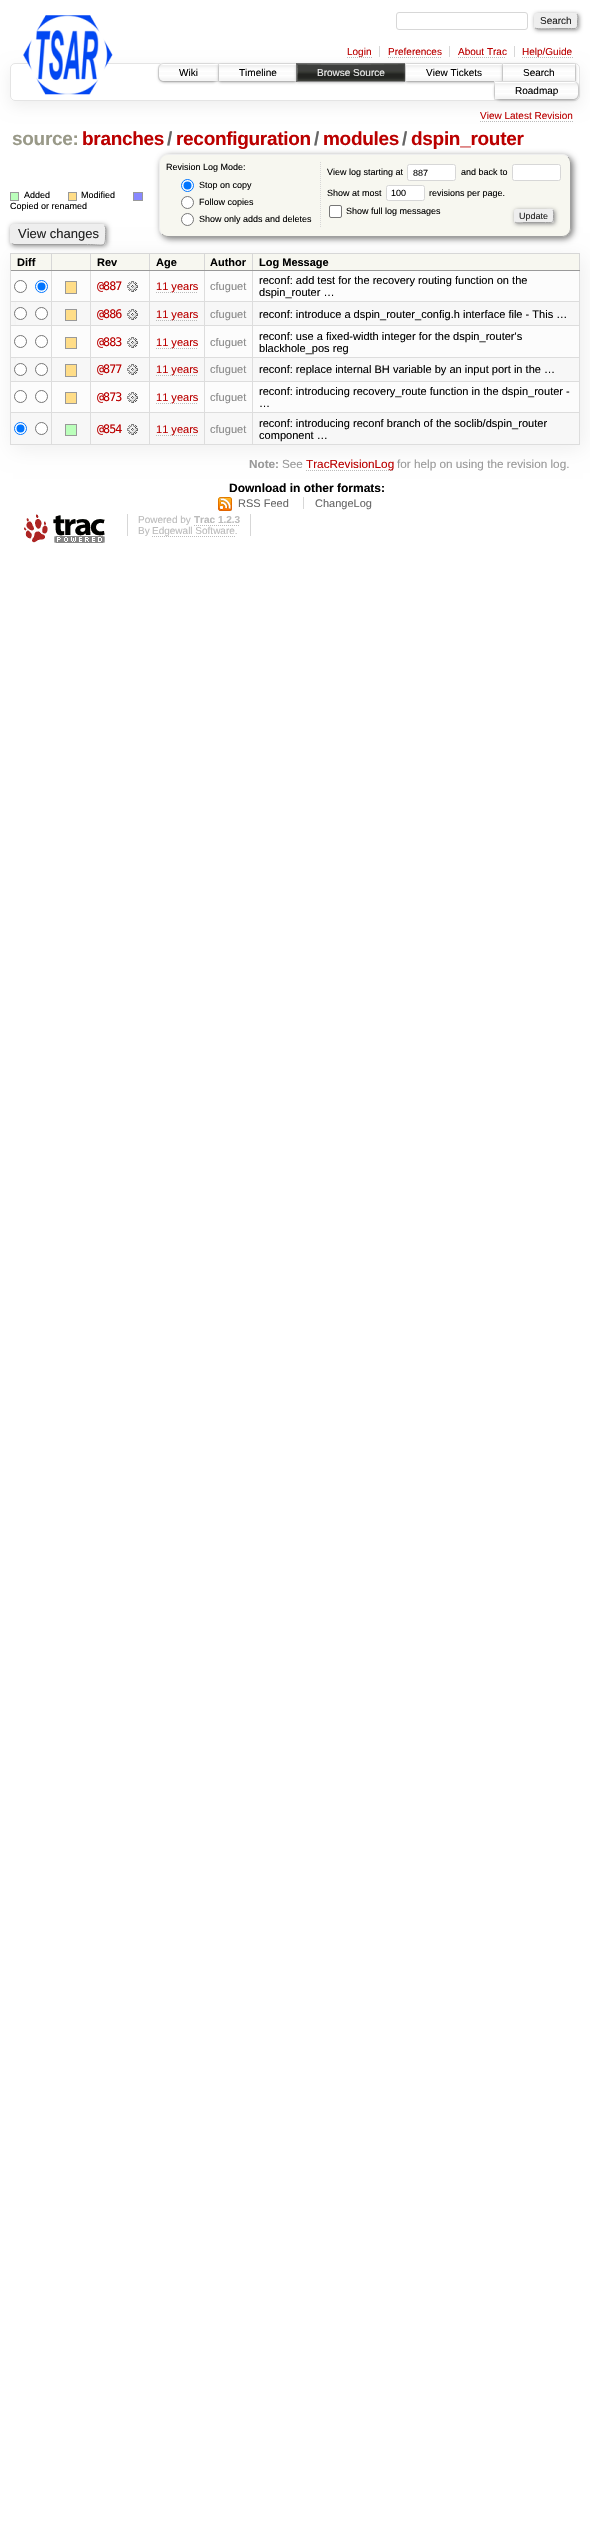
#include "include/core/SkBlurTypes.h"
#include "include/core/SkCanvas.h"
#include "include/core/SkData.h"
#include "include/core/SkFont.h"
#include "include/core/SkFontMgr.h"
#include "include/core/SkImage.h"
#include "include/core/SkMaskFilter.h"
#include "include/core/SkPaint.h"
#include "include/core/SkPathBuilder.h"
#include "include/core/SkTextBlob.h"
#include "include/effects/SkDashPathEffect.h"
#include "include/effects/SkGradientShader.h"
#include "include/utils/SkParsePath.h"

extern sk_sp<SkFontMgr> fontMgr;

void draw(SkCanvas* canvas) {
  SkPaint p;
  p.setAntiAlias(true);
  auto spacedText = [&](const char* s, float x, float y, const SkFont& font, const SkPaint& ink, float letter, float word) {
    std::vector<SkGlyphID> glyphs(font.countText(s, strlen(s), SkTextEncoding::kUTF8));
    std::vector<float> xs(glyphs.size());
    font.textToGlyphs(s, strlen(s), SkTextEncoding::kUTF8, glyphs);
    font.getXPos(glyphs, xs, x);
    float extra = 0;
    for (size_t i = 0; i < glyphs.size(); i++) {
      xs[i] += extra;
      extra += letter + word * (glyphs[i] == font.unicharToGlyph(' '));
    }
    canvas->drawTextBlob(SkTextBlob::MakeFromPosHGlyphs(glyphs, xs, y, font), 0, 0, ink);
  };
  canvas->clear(SK_ColorWHITE);
  canvas->save();
  canvas->clipPath(SkPathBuilder(SkPathFillType::kEvenOdd).moveTo(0, 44).lineTo(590, 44).lineTo(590, 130).lineTo(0, 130).close().moveTo(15, 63).lineTo(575, 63).cubicTo(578, 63, 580, 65, 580, 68).lineTo(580, 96).cubicTo(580, 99, 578, 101, 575, 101).lineTo(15, 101).cubicTo(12, 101, 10, 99, 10, 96).lineTo(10, 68).cubicTo(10, 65, 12, 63, 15, 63).close().detach(), true);
  p.setColor(SkColorSetRGB(238, 238, 238));
  p.setMaskFilter(SkMaskFilter::MakeBlur(kNormal_SkBlurStyle, 7.5f));
  canvas->drawRoundRect(SkRect::MakeLTRB(10, 68, 580, 106), 5, 5, p);
  p.setMaskFilter(nullptr);
  canvas->restore();
  p.setStyle(SkPaint::kStroke_Style);
  p.setStrokeWidth(1);
  p.setColor(SkColorSetRGB(228, 228, 228));
  canvas->drawRoundRect(SkRect::MakeLTRB(10.5f, 63.5f, 579.5f, 100.5f), 4.5f, 4.5f, p);
  canvas->drawImageRect(SkImages::DeferredFromEncodedData(SkData::MakeFromFileName("images/1.png")), SkRect::MakeLTRB(23, 15, 113, 95), SkSamplingOptions());
  p.setColor(SkColorSetRGB(215, 215, 215));
  canvas->drawRoundRect(SkRect::MakeLTRB(396.5f, 12.5f, 527.5f, 29.5f), 2.5f, 2.5f, p);
  p.setStyle(SkPaint::kFill_Style);
  p.setColor(SkColorSetRGB(136, 136, 136));
  p.setMaskFilter(SkMaskFilter::MakeBlur(kNormal_SkBlurStyle, 2));
  canvas->drawRoundRect(SkRect::MakeLTRB(535, 14, 579, 30), 3, 3, p);
  p.setMaskFilter(nullptr);
  p.setColor(SkColorSetRGB(238, 238, 238));
  canvas->drawRoundRect(SkRect::MakeLTRB(534, 13, 578, 29), 3, 3, p);
  p.setStyle(SkPaint::kStroke_Style);
  p.setColor(SkColorSetRGB(159, 159, 159));
  canvas->drawPath(SkPathBuilder().moveTo(577, 14).cubicTo(578.5f, 16, 577.5f, 19, 577.5f, 21).cubicTo(577.5f, 29.5f, 578, 28.5f, 568.5f, 28.5f).lineTo(556, 28.5f).cubicTo(553, 28.5f, 537, 29.5f, 535, 28).detach(), p);
  p.setColor(SkColorSetRGB(238, 238, 238));
  canvas->drawPath(SkPathBuilder().moveTo(535, 28).cubicTo(533.5f, 26, 534.5f, 23, 534.5f, 21).cubicTo(534.5f, 12.5f, 534, 13.5f, 543.5f, 13.5f).lineTo(556, 13.5f).cubicTo(559, 13.5f, 575, 12.5f, 577, 14).detach(), p);
  p.setStyle(SkPaint::kFill_Style);
  p.setColor(SkColorSetRGB(215, 215, 215));
  canvas->drawRect(SkRect::MakeLTRB(379, 46, 380, 57), p);
  p.setStyle(SkPaint::kStroke_Style);
  p.setColor(SkColorSetRGB(187, 187, 187));
  p.setPathEffect(SkDashPathEffect::Make({{1, 1}}, 0));
  canvas->drawPath(SkPathBuilder().moveTo(347, 57.5f).lineTo(372, 57.5f).detach(), p);
  p.setPathEffect(nullptr);
  p.setStyle(SkPaint::kFill_Style);
  p.setColor(SkColorSetRGB(215, 215, 215));
  canvas->drawRect(SkRect::MakeLTRB(449, 46, 450, 57), p);
  p.setStyle(SkPaint::kStroke_Style);
  p.setColor(SkColorSetRGB(187, 187, 187));
  p.setPathEffect(SkDashPathEffect::Make({{1, 1}}, 0));
  canvas->drawPath(SkPathBuilder().moveTo(388, 57.5f).lineTo(442, 57.5f).detach(), p);
  p.setPathEffect(nullptr);
  p.setStyle(SkPaint::kFill_Style);
  p.setColor(SkColorSetRGB(215, 215, 215));
  canvas->drawRect(SkRect::MakeLTRB(514, 46, 515, 57), p);
  p.setStyle(SkPaint::kStroke_Style);
  p.setColor(SkColorSetRGB(187, 187, 187));
  p.setPathEffect(SkDashPathEffect::Make({{1, 1}}, 0));
  canvas->drawPath(SkPathBuilder().moveTo(458, 57.5f).lineTo(506, 57.5f).detach(), p);
  p.setPathEffect(nullptr);
  p.setPathEffect(SkDashPathEffect::Make({{1, 1}}, 0));
  canvas->drawPath(SkPathBuilder().moveTo(522, 57.5f).lineTo(573, 57.5f).detach(), p);
  p.setPathEffect(nullptr);
  p.setStyle(SkPaint::kFill_Style);
  p.setColor(SK_ColorWHITE);
  canvas->drawPath(SkPathBuilder().moveTo(163, 63).lineTo(219, 63).lineTo(219, 82).lineTo(163, 82).cubicTo(160, 82, 158, 80, 158, 77).lineTo(158, 68).cubicTo(158, 65, 160, 63, 163, 63).close().detach(), p);
  canvas->drawImageRect(SkImages::DeferredFromEncodedData(SkData::MakeFromFileName("images/2.png")), SkRect::MakeLTRB(158, 65, 218, 82), SkSamplingOptions());
  p.setStyle(SkPaint::kStroke_Style);
  p.setColor(SkColorSetRGB(228, 228, 228));
  canvas->drawPath(SkPathBuilder().moveTo(163, 63.5f).lineTo(218.5f, 63.5f).lineTo(218.5f, 81.5f).lineTo(163, 81.5f).cubicTo(160.5f, 81.5f, 158.5f, 79.5f, 158.5f, 77).lineTo(158.5f, 68).cubicTo(158.5f, 65.5f, 160.5f, 63.5f, 163, 63.5f).close().detach(), p);
  canvas->save();
  canvas->clipPath(SkPathBuilder(SkPathFillType::kEvenOdd).moveTo(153, 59).lineTo(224, 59).lineTo(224, 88).lineTo(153, 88).close().moveTo(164, 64).lineTo(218, 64).lineTo(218, 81).lineTo(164, 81).cubicTo(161, 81, 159, 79, 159, 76).lineTo(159, 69).cubicTo(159, 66, 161, 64, 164, 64).close().detach(), true);
  p.setStyle(SkPaint::kFill_Style);
  p.setColor(SkColorSetRGB(153, 153, 153));
  p.setMaskFilter(SkMaskFilter::MakeBlur(kNormal_SkBlurStyle, 1.5f));
  canvas->drawRoundRect(SkRect::MakeLTRB(159, 65, 218, 82), 5, 5, p);
  p.setMaskFilter(nullptr);
  canvas->restore();
  p.setColor(SK_ColorWHITE);
  canvas->drawRect(SkRect::MakeLTRB(219, 66, 221, 81), p);
  canvas->drawImageRect(SkImages::DeferredFromEncodedData(SkData::MakeFromFileName("images/3.png")), SkRect::MakeLTRB(219, 65, 296, 81), SkSamplingOptions());
  p.setStyle(SkPaint::kStroke_Style);
  p.setColor(SkColorSetRGB(228, 228, 228));
  canvas->drawRect(SkRect::MakeLTRB(218.5f, 63.5f, 296.5f, 81.5f), p);
  canvas->save();
  canvas->clipPath(SkPathBuilder(SkPathFillType::kEvenOdd).moveTo(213, 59).lineTo(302, 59).lineTo(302, 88).lineTo(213, 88).close().moveTo(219, 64).lineTo(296, 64).lineTo(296, 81).lineTo(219, 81).close().detach(), true);
  p.setStyle(SkPaint::kFill_Style);
  p.setColor(SkColorSetRGB(153, 153, 153));
  p.setMaskFilter(SkMaskFilter::MakeBlur(kNormal_SkBlurStyle, 1.5f));
  canvas->drawRect(SkRect::MakeLTRB(219, 65, 296, 82), p);
  p.setMaskFilter(nullptr);
  canvas->restore();
  p.setStyle(SkPaint::kStroke_Style);
  p.setColor(SkColorSetRGB(102, 102, 102));
  canvas->drawRect(SkRect::MakeLTRB(296.5f, 63.5f, 405.5f, 81.5f), p);
  p.setStyle(SkPaint::kFill_Style);
  p.setColor(SkColorSetRGB(153, 153, 153));
  p.setMaskFilter(SkMaskFilter::MakeBlur(kNormal_SkBlurStyle, 1.5f));
  canvas->drawRect(SkRect::MakeLTRB(297, 65, 405, 82), p);
  p.setMaskFilter(nullptr);
  p.setColor(SK_ColorBLACK);
  canvas->drawRect(SkRect::MakeLTRB(297, 64, 405, 81), p);
  canvas->drawImageRect(SkImages::DeferredFromEncodedData(SkData::MakeFromFileName("images/4.png")), SkRect::MakeLTRB(297, 64, 405, 81), SkSamplingOptions());
  p.setColor(SK_ColorWHITE);
  canvas->drawRect(SkRect::MakeLTRB(406, 64, 408, 81), p);
  canvas->drawImageRect(SkImages::DeferredFromEncodedData(SkData::MakeFromFileName("images/5.png")), SkRect::MakeLTRB(406, 65, 502, 81), SkSamplingOptions());
  p.setStyle(SkPaint::kStroke_Style);
  p.setColor(SkColorSetRGB(228, 228, 228));
  canvas->drawRect(SkRect::MakeLTRB(405.5f, 63.5f, 502.5f, 81.5f), p);
  canvas->save();
  canvas->clipPath(SkPathBuilder(SkPathFillType::kEvenOdd).moveTo(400, 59).lineTo(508, 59).lineTo(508, 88).lineTo(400, 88).close().moveTo(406, 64).lineTo(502, 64).lineTo(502, 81).lineTo(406, 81).close().detach(), true);
  p.setStyle(SkPaint::kFill_Style);
  p.setColor(SkColorSetRGB(153, 153, 153));
  p.setMaskFilter(SkMaskFilter::MakeBlur(kNormal_SkBlurStyle, 1.5f));
  canvas->drawRect(SkRect::MakeLTRB(406, 65, 502, 82), p);
  p.setMaskFilter(nullptr);
  canvas->restore();
  p.setColor(SK_ColorWHITE);
  canvas->drawRect(SkRect::MakeLTRB(503, 64, 505, 81), p);
  canvas->drawImageRect(SkImages::DeferredFromEncodedData(SkData::MakeFromFileName("images/6.png")), SkRect::MakeLTRB(503, 65, 575, 81), SkSamplingOptions());
  p.setStyle(SkPaint::kStroke_Style);
  p.setColor(SkColorSetRGB(228, 228, 228));
  canvas->drawRect(SkRect::MakeLTRB(502.5f, 63.5f, 575.5f, 81.5f), p);
  canvas->save();
  canvas->clipPath(SkPathBuilder(SkPathFillType::kEvenOdd).moveTo(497, 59).lineTo(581, 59).lineTo(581, 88).lineTo(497, 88).close().moveTo(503, 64).lineTo(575, 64).lineTo(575, 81).lineTo(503, 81).close().detach(), true);
  p.setStyle(SkPaint::kFill_Style);
  p.setColor(SkColorSetRGB(153, 153, 153));
  p.setMaskFilter(SkMaskFilter::MakeBlur(kNormal_SkBlurStyle, 1.5f));
  canvas->drawRect(SkRect::MakeLTRB(503, 65, 575, 82), p);
  p.setMaskFilter(nullptr);
  canvas->restore();
  p.setColor(SK_ColorWHITE);
  canvas->drawPath(SkPathBuilder().moveTo(494, 81).lineTo(574, 81).cubicTo(577, 81, 579, 83, 579, 86).lineTo(579, 95).cubicTo(579, 98, 577, 100, 574, 100).lineTo(494, 100).close().detach(), p);
  canvas->drawImageRect(SkImages::DeferredFromEncodedData(SkData::MakeFromFileName("images/7.png")), SkRect::MakeLTRB(495, 83, 579, 100), SkSamplingOptions());
  p.setStyle(SkPaint::kStroke_Style);
  p.setColor(SkColorSetRGB(228, 228, 228));
  canvas->drawPath(SkPathBuilder().moveTo(494.5f, 81.5f).lineTo(574, 81.5f).cubicTo(576.5f, 81.5f, 578.5f, 83.5f, 578.5f, 86).lineTo(578.5f, 95).cubicTo(578.5f, 97.5f, 576.5f, 99.5f, 574, 99.5f).lineTo(494.5f, 99.5f).close().detach(), p);
  canvas->save();
  canvas->clipPath(SkPathBuilder(SkPathFillType::kEvenOdd).moveTo(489, 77).lineTo(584, 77).lineTo(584, 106).lineTo(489, 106).close().moveTo(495, 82).lineTo(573, 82).cubicTo(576, 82, 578, 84, 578, 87).lineTo(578, 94).cubicTo(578, 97, 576, 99, 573, 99).lineTo(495, 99).close().detach(), true);
  p.setStyle(SkPaint::kFill_Style);
  p.setColor(SkColorSetRGB(153, 153, 153));
  p.setMaskFilter(SkMaskFilter::MakeBlur(kNormal_SkBlurStyle, 1.5f));
  canvas->drawRoundRect(SkRect::MakeLTRB(495, 83, 578, 100), 5, 5, p);
  p.setMaskFilter(nullptr);
  canvas->restore();
  p.setStyle(SkPaint::kStroke_Style);
  p.setColor(SkColorSetRGB(187, 187, 187));
  p.setPathEffect(SkDashPathEffect::Make({{1, 1}}, 0));
  canvas->drawPath(SkPathBuilder().moveTo(480, 121.5f).lineTo(573, 121.5f).detach(), p);
  p.setPathEffect(nullptr);
  p.setStyle(SkPaint::kFill_Style);
  p.setColor(SkColorSetRGB(187, 255, 187));
  canvas->drawRect(SkRect::MakeLTRB(10.5f, 192.5f, 18.5f, 200.5f), p);
  p.setStyle(SkPaint::kStroke_Style);
  p.setColor(SkColorSetRGB(153, 153, 153));
  canvas->drawRect(SkRect::MakeLTRB(10.5f, 192.5f, 18.5f, 200.5f), p);
  p.setStyle(SkPaint::kFill_Style);
  p.setColor(SkColorSetRGB(255, 221, 136));
  canvas->drawRect(SkRect::MakeLTRB(68.5f, 192.5f, 76.5f, 200.5f), p);
  p.setStyle(SkPaint::kStroke_Style);
  p.setColor(SkColorSetRGB(153, 153, 153));
  canvas->drawRect(SkRect::MakeLTRB(68.5f, 192.5f, 76.5f, 200.5f), p);
  p.setStyle(SkPaint::kFill_Style);
  p.setColor(SkColorSetRGB(136, 136, 255));
  canvas->drawRect(SkRect::MakeLTRB(133.5f, 192.5f, 142.5f, 200.5f), p);
  p.setStyle(SkPaint::kStroke_Style);
  p.setColor(SkColorSetRGB(153, 153, 153));
  canvas->drawRect(SkRect::MakeLTRB(133.5f, 192.5f, 142.5f, 200.5f), p);
  p.setStyle(SkPaint::kFill_Style);
  p.setColor(SkColorSetRGB(119, 119, 119));
  p.setMaskFilter(SkMaskFilter::MakeBlur(kNormal_SkBlurStyle, 3));
  canvas->drawRoundRect(SkRect::MakeLTRB(161, 156, 573, 239), 9, 9, p);
  p.setMaskFilter(nullptr);
  p.setColor(SkColorSetRGB(238, 238, 238));
  p.setMaskFilter(SkMaskFilter::MakeBlur(kNormal_SkBlurStyle, 10));
  canvas->drawRect(SkRect::MakeLTRB(13, 257, 583, 449), p);
  p.setMaskFilter(nullptr);
  p.setColor(SkColorSetRGB(247, 247, 240));
  canvas->drawRoundRect(SkRect::MakeLTRB(159, 154, 571, 237), 9, 9, p);
  p.setStyle(SkPaint::kStroke_Style);
  p.setColor(SkColorSetRGB(159, 159, 159));
  canvas->drawPath(SkPathBuilder().moveTo(568, 157).cubicTo(569.5f, 158.5f, 570.5f, 160.5f, 570.5f, 163).lineTo(570.5f, 228).cubicTo(570.5f, 230.5f, 569.5f, 232.5f, 568, 234).cubicTo(566.5f, 235.5f, 564.5f, 236.5f, 562, 236.5f).lineTo(168, 236.5f).cubicTo(165.5f, 236.5f, 163.5f, 235.5f, 162, 234).detach(), p);
  p.setColor(SkColorSetRGB(238, 238, 238));
  canvas->drawPath(SkPathBuilder().moveTo(162, 234).cubicTo(160.5f, 232.5f, 159.5f, 230.5f, 159.5f, 228).lineTo(159.5f, 163).cubicTo(159.5f, 160.5f, 160.5f, 158.5f, 162, 157).cubicTo(163.5f, 155.5f, 165.5f, 154.5f, 168, 154.5f).lineTo(562, 154.5f).cubicTo(564.5f, 154.5f, 566.5f, 155.5f, 568, 157).detach(), p);
  p.setColor(SkColorSetRGB(215, 215, 215));
  p.setPathEffect(SkDashPathEffect::Make({{1, 1}}, 0));
  canvas->drawPath(SkPathBuilder().moveTo(320.5f, 162).lineTo(320.5f, 228).detach(), p);
  p.setPathEffect(nullptr);
  p.setStyle(SkPaint::kFill_Style);
  p.setColor(SK_ColorWHITE);
  canvas->drawCircle(187.5f, 185.5f, 6, p);
  p.setStyle(SkPaint::kStroke_Style);
  p.setColor(SkColorSetRGB(0, 117, 255));
  canvas->drawCircle(187.5f, 185.5f, 6, p);
  p.setStyle(SkPaint::kFill_Style);
  canvas->drawCircle(187.5f, 185.5f, 4, p);
  p.setColor(SK_ColorWHITE);
  canvas->drawCircle(187.5f, 202.5f, 6, p);
  p.setStyle(SkPaint::kStroke_Style);
  p.setColor(SkColorSetRGB(118, 118, 118));
  canvas->drawCircle(187.5f, 202.5f, 6, p);
  p.setStyle(SkPaint::kFill_Style);
  p.setColor(SK_ColorWHITE);
  canvas->drawCircle(187.5f, 219.5f, 6, p);
  p.setStyle(SkPaint::kStroke_Style);
  p.setColor(SkColorSetRGB(118, 118, 118));
  canvas->drawCircle(187.5f, 219.5f, 6, p);
  p.setStyle(SkPaint::kFill_Style);
  p.setColor(SK_ColorWHITE);
  canvas->drawRoundRect(SkRect::MakeLTRB(407.5f, 164.5f, 455.5f, 180.5f), 2, 2, p);
  p.setStyle(SkPaint::kStroke_Style);
  p.setColor(SkColorSetRGB(215, 215, 215));
  canvas->drawRoundRect(SkRect::MakeLTRB(407.5f, 164.5f, 455.5f, 180.5f), 2, 2, p);
  p.setStyle(SkPaint::kFill_Style);
  p.setColor(SK_ColorWHITE);
  canvas->drawRoundRect(SkRect::MakeLTRB(512.5f, 164.5f, 560.5f, 180.5f), 2, 2, p);
  p.setStyle(SkPaint::kStroke_Style);
  p.setColor(SkColorSetRGB(215, 215, 215));
  canvas->drawRoundRect(SkRect::MakeLTRB(512.5f, 164.5f, 560.5f, 180.5f), 2, 2, p);
  p.setStyle(SkPaint::kFill_Style);
  p.setColor(SK_ColorWHITE);
  canvas->drawRoundRect(SkRect::MakeLTRB(386.5f, 185.5f, 424.5f, 200.5f), 2, 2, p);
  p.setStyle(SkPaint::kStroke_Style);
  p.setColor(SkColorSetRGB(215, 215, 215));
  canvas->drawRoundRect(SkRect::MakeLTRB(386.5f, 185.5f, 424.5f, 200.5f), 2, 2, p);
  p.setStyle(SkPaint::kFill_Style);
  p.setColor(SK_ColorWHITE);
  canvas->drawRoundRect(SkRect::MakeLTRB(329.5f, 205.5f, 341.5f, 217.5f), 1.5f, 1.5f, p);
  p.setStyle(SkPaint::kStroke_Style);
  p.setColor(SkColorSetRGB(118, 118, 118));
  canvas->drawRoundRect(SkRect::MakeLTRB(329.5f, 205.5f, 341.5f, 217.5f), 1.5f, 1.5f, p);
  p.setStyle(SkPaint::kFill_Style);
  p.setColor(SkColorSetRGB(136, 136, 136));
  p.setMaskFilter(SkMaskFilter::MakeBlur(kNormal_SkBlurStyle, 2));
  canvas->drawRoundRect(SkRect::MakeLTRB(515, 210, 555, 224), 2.5f, 2.5f, p);
  p.setMaskFilter(nullptr);
  p.setColor(SkColorSetRGB(238, 238, 238));
  canvas->drawRoundRect(SkRect::MakeLTRB(514, 209, 554, 223), 2.5f, 2.5f, p);
  p.setStyle(SkPaint::kStroke_Style);
  p.setColor(SkColorSetRGB(159, 159, 159));
  canvas->drawPath(SkPathBuilder().moveTo(553, 210).cubicTo(554, 211.5f, 553.5f, 214.5f, 553.5f, 216).cubicTo(553.5f, 223.5f, 553.5f, 222.5f, 545.5f, 222.5f).lineTo(522.5f, 222.5f).cubicTo(522, 222.5f, 516.5f, 223.5f, 515, 222).detach(), p);
  p.setColor(SkColorSetRGB(238, 238, 238));
  canvas->drawPath(SkPathBuilder().moveTo(515, 222).cubicTo(514, 220.5f, 514.5f, 217.5f, 514.5f, 216).cubicTo(514.5f, 208.5f, 514.5f, 209.5f, 522.5f, 209.5f).lineTo(545.5f, 209.5f).cubicTo(546, 209.5f, 551.5f, 208.5f, 553, 210).detach(), p);
  p.setStyle(SkPaint::kFill_Style);
  p.setColor(SkColorSetRGB(247, 247, 240));
  canvas->drawRect(SkRect::MakeLTRB(11, 254, 579, 270), p);
  p.setColor(SkColorSetRGB(215, 215, 215));
  canvas->drawRect(SkRect::MakeLTRB(252, 253, 580, 254), p);
  p.setColor(SkColorSetRGB(221, 221, 221));
  canvas->drawRect(SkRect::MakeLTRB(10, 301, 580, 302), p);
  canvas->drawRect(SkRect::MakeLTRB(10, 325, 580, 326), p);
  canvas->drawRect(SkRect::MakeLTRB(10, 357, 580, 358), p);
  canvas->drawRect(SkRect::MakeLTRB(10, 381, 580, 382), p);
  canvas->drawRect(SkRect::MakeLTRB(10, 412, 580, 413), p);
  canvas->drawRect(SkRect::MakeLTRB(579, 270, 580, 445), p);
  p.setColor(SkColorSetRGB(215, 215, 215));
  canvas->drawRect(SkRect::MakeLTRB(579, 253, 580, 271), p);
  p.setColor(SkColorSetRGB(252, 252, 252));
  canvas->drawRect(SkRect::MakeLTRB(11, 271, 579, 301), p);
  p.setColor(SkColorSetRGB(247, 247, 247));
  canvas->drawRect(SkRect::MakeLTRB(16, 302, 579, 325), p);
  p.setColor(SkColorSetRGB(252, 252, 252));
  canvas->drawRect(SkRect::MakeLTRB(11, 326, 579, 357), p);
  p.setColor(SkColorSetRGB(247, 247, 247));
  canvas->drawRect(SkRect::MakeLTRB(16, 358, 579, 381), p);
  p.setColor(SkColorSetRGB(252, 252, 252));
  canvas->drawRect(SkRect::MakeLTRB(11, 382, 579, 412), p);
  p.setColor(SkColorSetRGB(247, 247, 247));
  canvas->drawRect(SkRect::MakeLTRB(11, 413, 579, 444), p);
  p.setColor(SkColorSetRGB(221, 221, 221));
  canvas->drawRect(SkRect::MakeLTRB(252, 444, 580, 445), p);
  canvas->drawRect(SkRect::MakeLTRB(252, 270, 253, 445), p);
  p.setColor(SkColorSetRGB(153, 153, 153));
  canvas->drawRect(SkRect::MakeLTRB(252, 270, 580, 271), p);
  p.setColor(SkColorSetRGB(215, 215, 215));
  canvas->drawRect(SkRect::MakeLTRB(252, 253, 253, 271), p);
  canvas->drawRect(SkRect::MakeLTRB(204, 253, 253, 254), p);
  p.setColor(SkColorSetRGB(221, 221, 221));
  canvas->drawRect(SkRect::MakeLTRB(204, 444, 253, 445), p);
  canvas->drawRect(SkRect::MakeLTRB(204, 270, 205, 445), p);
  p.setColor(SkColorSetRGB(153, 153, 153));
  canvas->drawRect(SkRect::MakeLTRB(204, 270, 253, 271), p);
  p.setColor(SkColorSetRGB(215, 215, 215));
  canvas->drawRect(SkRect::MakeLTRB(204, 253, 205, 271), p);
  canvas->drawRect(SkRect::MakeLTRB(149, 253, 205, 254), p);
  p.setColor(SkColorSetRGB(221, 221, 221));
  canvas->drawRect(SkRect::MakeLTRB(149, 444, 205, 445), p);
  canvas->drawRect(SkRect::MakeLTRB(149, 270, 150, 445), p);
  p.setColor(SkColorSetRGB(153, 153, 153));
  canvas->drawRect(SkRect::MakeLTRB(149, 270, 205, 271), p);
  p.setColor(SkColorSetRGB(215, 215, 215));
  canvas->drawRect(SkRect::MakeLTRB(149, 253, 150, 271), p);
  canvas->drawRect(SkRect::MakeLTRB(90, 253, 150, 254), p);
  p.setColor(SkColorSetRGB(221, 221, 221));
  canvas->drawRect(SkRect::MakeLTRB(90, 444, 150, 445), p);
  canvas->drawRect(SkRect::MakeLTRB(90, 270, 91, 445), p);
  p.setColor(SkColorSetRGB(153, 153, 153));
  canvas->drawRect(SkRect::MakeLTRB(90, 270, 150, 271), p);
  p.setColor(SkColorSetRGB(215, 215, 215));
  canvas->drawRect(SkRect::MakeLTRB(90, 253, 91, 271), p);
  canvas->drawRect(SkRect::MakeLTRB(51, 253, 91, 254), p);
  p.setColor(SkColorSetRGB(221, 221, 221));
  canvas->drawRect(SkRect::MakeLTRB(51, 444, 91, 445), p);
  canvas->drawRect(SkRect::MakeLTRB(51, 270, 52, 445), p);
  p.setColor(SkColorSetRGB(153, 153, 153));
  canvas->drawRect(SkRect::MakeLTRB(51, 270, 91, 271), p);
  p.setColor(SkColorSetRGB(215, 215, 215));
  canvas->drawRect(SkRect::MakeLTRB(51, 253, 52, 271), p);
  canvas->drawRect(SkRect::MakeLTRB(10, 253, 52, 254), p);
  p.setColor(SkColorSetRGB(221, 221, 221));
  canvas->drawRect(SkRect::MakeLTRB(10, 444, 52, 445), p);
  canvas->drawRect(SkRect::MakeLTRB(10, 270, 11, 445), p);
  p.setColor(SkColorSetRGB(153, 153, 153));
  canvas->drawRect(SkRect::MakeLTRB(10, 270, 52, 271), p);
  p.setColor(SkColorSetRGB(215, 215, 215));
  canvas->drawRect(SkRect::MakeLTRB(10, 253, 11, 271), p);
  p.setColor(SkColorSetRGB(136, 136, 136));
  p.setMaskFilter(SkMaskFilter::MakeBlur(kNormal_SkBlurStyle, 2.5f));
  canvas->drawRoundRect(SkRect::MakeLTRB(11, 225, 107, 246), 4, 4, p);
  p.setMaskFilter(nullptr);
  p.setColor(SkColorSetRGB(238, 238, 238));
  canvas->drawRoundRect(SkRect::MakeLTRB(10, 224, 106, 245), 4, 4, p);
  p.setStyle(SkPaint::kStroke_Style);
  p.setColor(SkColorSetRGB(159, 159, 159));
  canvas->drawPath(SkPathBuilder().moveTo(104.5f, 225.5f).cubicTo(106.5f, 227.5f, 105.5f, 232, 105.5f, 234.5f).cubicTo(105.5f, 248.5f, 104.5f, 244.5f, 87.5f, 244.5f).lineTo(14, 244.5f).lineTo(11.5f, 243.5f).detach(), p);
  p.setColor(SkColorSetRGB(238, 238, 238));
  canvas->drawPath(SkPathBuilder().moveTo(11.5f, 243.5f).cubicTo(9.5f, 241.5f, 10.5f, 237, 10.5f, 234.5f).cubicTo(10.5f, 220.5f, 11.5f, 224.5f, 28.5f, 224.5f).lineTo(102, 224.5f).lineTo(104.5f, 225.5f).detach(), p);
  p.setStyle(SkPaint::kFill_Style);
  p.setColor(SK_ColorWHITE);
  canvas->drawCircle(20.5f, 286.5f, 6, p);
  p.setStyle(SkPaint::kStroke_Style);
  p.setColor(SkColorSetRGB(118, 118, 118));
  canvas->drawCircle(20.5f, 286.5f, 6, p);
  p.setStyle(SkPaint::kFill_Style);
  p.setColor(SK_ColorWHITE);
  canvas->drawCircle(41.5f, 286.5f, 6, p);
  p.setStyle(SkPaint::kStroke_Style);
  p.setColor(SkColorSetRGB(0, 117, 255));
  canvas->drawCircle(41.5f, 286.5f, 6, p);
  p.setStyle(SkPaint::kFill_Style);
  canvas->drawCircle(41.5f, 286.5f, 4, p);
  p.setColor(SkColorSetRGB(255, 221, 136));
  canvas->drawRect(SkRect::MakeLTRB(65.5f, 281.5f, 76.5f, 293.5f), p);
  p.setStyle(SkPaint::kStroke_Style);
  p.setColor(SkColorSetRGB(153, 153, 153));
  canvas->drawRect(SkRect::MakeLTRB(65.5f, 281.5f, 76.5f, 293.5f), p);
  canvas->drawImageRect(SkImages::DeferredFromEncodedData(SkData::MakeFromFileName("images/8.png")), SkRect::MakeLTRB(127, 281, 138, 292), SkSamplingOptions());
  p.setColor(SkColorSetRGB(187, 187, 187));
  p.setPathEffect(SkDashPathEffect::Make({{1, 1}}, 0));
  canvas->drawPath(SkPathBuilder().moveTo(156, 292.5f).lineTo(198, 292.5f).detach(), p);
  p.setPathEffect(nullptr);
  p.setStyle(SkPaint::kFill_Style);
  p.setColor(SK_ColorWHITE);
  canvas->drawCircle(20.5f, 313.5f, 6, p);
  p.setStyle(SkPaint::kStroke_Style);
  p.setColor(SkColorSetRGB(118, 118, 118));
  canvas->drawCircle(20.5f, 313.5f, 6, p);
  p.setStyle(SkPaint::kFill_Style);
  p.setColor(SK_ColorWHITE);
  canvas->drawCircle(41.5f, 313.5f, 6, p);
  p.setStyle(SkPaint::kStroke_Style);
  p.setColor(SkColorSetRGB(118, 118, 118));
  canvas->drawCircle(41.5f, 313.5f, 6, p);
  p.setStyle(SkPaint::kFill_Style);
  p.setColor(SkColorSetRGB(255, 221, 136));
  canvas->drawRect(SkRect::MakeLTRB(65.5f, 309.5f, 76.5f, 320.5f), p);
  p.setStyle(SkPaint::kStroke_Style);
  p.setColor(SkColorSetRGB(153, 153, 153));
  canvas->drawRect(SkRect::MakeLTRB(65.5f, 309.5f, 76.5f, 320.5f), p);
  canvas->drawImageRect(SkImages::DeferredFromEncodedData(SkData::MakeFromFileName("images/9.png")), SkRect::MakeLTRB(127, 309, 138, 320), SkSamplingOptions());
  p.setColor(SkColorSetRGB(187, 187, 187));
  p.setPathEffect(SkDashPathEffect::Make({{1, 1}}, 0));
  canvas->drawPath(SkPathBuilder().moveTo(156, 320.5f).lineTo(198, 320.5f).detach(), p);
  p.setPathEffect(nullptr);
  p.setStyle(SkPaint::kFill_Style);
  p.setColor(SK_ColorWHITE);
  canvas->drawCircle(20.5f, 341.5f, 6, p);
  p.setStyle(SkPaint::kStroke_Style);
  p.setColor(SkColorSetRGB(118, 118, 118));
  canvas->drawCircle(20.5f, 341.5f, 6, p);
  p.setStyle(SkPaint::kFill_Style);
  p.setColor(SK_ColorWHITE);
  canvas->drawCircle(41.5f, 341.5f, 6, p);
  p.setStyle(SkPaint::kStroke_Style);
  p.setColor(SkColorSetRGB(118, 118, 118));
  canvas->drawCircle(41.5f, 341.5f, 6, p);
  p.setStyle(SkPaint::kFill_Style);
  p.setColor(SkColorSetRGB(255, 221, 136));
  canvas->drawRect(SkRect::MakeLTRB(65.5f, 337.5f, 76.5f, 348.5f), p);
  p.setStyle(SkPaint::kStroke_Style);
  p.setColor(SkColorSetRGB(153, 153, 153));
  canvas->drawRect(SkRect::MakeLTRB(65.5f, 337.5f, 76.5f, 348.5f), p);
  canvas->drawImageRect(SkImages::DeferredFromEncodedData(SkData::MakeFromFileName("images/8.png")), SkRect::MakeLTRB(127, 337, 138, 348), SkSamplingOptions());
  p.setColor(SkColorSetRGB(187, 187, 187));
  p.setPathEffect(SkDashPathEffect::Make({{1, 1}}, 0));
  canvas->drawPath(SkPathBuilder().moveTo(156, 348.5f).lineTo(198, 348.5f).detach(), p);
  p.setPathEffect(nullptr);
  p.setStyle(SkPaint::kFill_Style);
  p.setColor(SK_ColorWHITE);
  canvas->drawCircle(20.5f, 369.5f, 6, p);
  p.setStyle(SkPaint::kStroke_Style);
  p.setColor(SkColorSetRGB(118, 118, 118));
  canvas->drawCircle(20.5f, 369.5f, 6, p);
  p.setStyle(SkPaint::kFill_Style);
  p.setColor(SK_ColorWHITE);
  canvas->drawCircle(41.5f, 369.5f, 6, p);
  p.setStyle(SkPaint::kStroke_Style);
  p.setColor(SkColorSetRGB(118, 118, 118));
  canvas->drawCircle(41.5f, 369.5f, 6, p);
  p.setStyle(SkPaint::kFill_Style);
  p.setColor(SkColorSetRGB(255, 221, 136));
  canvas->drawRect(SkRect::MakeLTRB(65.5f, 364.5f, 76.5f, 376.5f), p);
  p.setStyle(SkPaint::kStroke_Style);
  p.setColor(SkColorSetRGB(153, 153, 153));
  canvas->drawRect(SkRect::MakeLTRB(65.5f, 364.5f, 76.5f, 376.5f), p);
  canvas->drawImageRect(SkImages::DeferredFromEncodedData(SkData::MakeFromFileName("images/9.png")), SkRect::MakeLTRB(127, 364, 138, 375), SkSamplingOptions());
  p.setColor(SkColorSetRGB(187, 187, 187));
  p.setPathEffect(SkDashPathEffect::Make({{1, 1}}, 0));
  canvas->drawPath(SkPathBuilder().moveTo(156, 375.5f).lineTo(198, 375.5f).detach(), p);
  p.setPathEffect(nullptr);
  p.setStyle(SkPaint::kFill_Style);
  p.setColor(SK_ColorWHITE);
  canvas->drawCircle(20.5f, 396.5f, 6, p);
  p.setStyle(SkPaint::kStroke_Style);
  p.setColor(SkColorSetRGB(118, 118, 118));
  canvas->drawCircle(20.5f, 396.5f, 6, p);
  p.setStyle(SkPaint::kFill_Style);
  p.setColor(SK_ColorWHITE);
  canvas->drawCircle(41.5f, 396.5f, 6, p);
  p.setStyle(SkPaint::kStroke_Style);
  p.setColor(SkColorSetRGB(118, 118, 118));
  canvas->drawCircle(41.5f, 396.5f, 6, p);
  p.setStyle(SkPaint::kFill_Style);
  p.setColor(SkColorSetRGB(255, 221, 136));
  canvas->drawRect(SkRect::MakeLTRB(65.5f, 392.5f, 76.5f, 403.5f), p);
  p.setStyle(SkPaint::kStroke_Style);
  p.setColor(SkColorSetRGB(153, 153, 153));
  canvas->drawRect(SkRect::MakeLTRB(65.5f, 392.5f, 76.5f, 403.5f), p);
  canvas->drawImageRect(SkImages::DeferredFromEncodedData(SkData::MakeFromFileName("images/8.png")), SkRect::MakeLTRB(127, 392, 138, 403), SkSamplingOptions());
  p.setColor(SkColorSetRGB(187, 187, 187));
  p.setPathEffect(SkDashPathEffect::Make({{1, 1}}, 0));
  canvas->drawPath(SkPathBuilder().moveTo(156, 403.5f).lineTo(198, 403.5f).detach(), p);
  p.setPathEffect(nullptr);
  p.setStyle(SkPaint::kFill_Style);
  p.setColor(SK_ColorWHITE);
  canvas->drawCircle(20.5f, 428.5f, 6, p);
  p.setStyle(SkPaint::kStroke_Style);
  p.setColor(SkColorSetRGB(0, 117, 255));
  canvas->drawCircle(20.5f, 428.5f, 6, p);
  p.setStyle(SkPaint::kFill_Style);
  canvas->drawCircle(20.5f, 428.5f, 4, p);
  p.setColor(SK_ColorWHITE);
  canvas->drawCircle(41.5f, 428.5f, 6, p);
  p.setStyle(SkPaint::kStroke_Style);
  p.setColor(SkColorSetRGB(118, 118, 118));
  canvas->drawCircle(41.5f, 428.5f, 6, p);
  p.setStyle(SkPaint::kFill_Style);
  p.setColor(SkColorSetRGB(187, 255, 187));
  canvas->drawRect(SkRect::MakeLTRB(65.5f, 424.5f, 76.5f, 435.5f), p);
  p.setStyle(SkPaint::kStroke_Style);
  p.setColor(SkColorSetRGB(153, 153, 153));
  canvas->drawRect(SkRect::MakeLTRB(65.5f, 424.5f, 76.5f, 435.5f), p);
  canvas->drawImageRect(SkImages::DeferredFromEncodedData(SkData::MakeFromFileName("images/9.png")), SkRect::MakeLTRB(127, 424, 138, 435), SkSamplingOptions());
  p.setColor(SkColorSetRGB(187, 187, 187));
  p.setPathEffect(SkDashPathEffect::Make({{1, 1}}, 0));
  canvas->drawPath(SkPathBuilder().moveTo(156, 435.5f).lineTo(198, 435.5f).detach(), p);
  p.setPathEffect(nullptr);
  p.setPathEffect(SkDashPathEffect::Make({{1, 1}}, 0));
  canvas->drawPath(SkPathBuilder().moveTo(306, 470.5f).lineTo(394, 470.5f).detach(), p);
  p.setPathEffect(nullptr);
  canvas->drawImageRect(SkImages::DeferredFromEncodedData(SkData::MakeFromFileName("images/10.png")), SkRect::MakeLTRB(218, 497, 232, 511), SkSamplingOptions());
  p.setStyle(SkPaint::kFill_Style);
  p.setColor(SkColorSetRGB(215, 215, 215));
  canvas->drawRect(SkRect::MakeLTRB(303, 497, 304, 509), p);
  canvas->drawImageRect(SkImages::DeferredFromEncodedData(SkData::MakeFromFileName("images/11.png")), SkRect::MakeLTRB(24, 514, 105, 543), SkSamplingOptions());
  canvas->drawRect(SkRect::MakeLTRB(250, 514, 251, 536), p);
  canvas->drawRect(SkRect::MakeLTRB(127, 514, 128, 536), p);
  p.setStyle(SkPaint::kStroke_Style);
  p.setColor(SkColorSetRGB(187, 187, 187));
  p.setPathEffect(SkDashPathEffect::Make({{1, 1}}, 0));
  canvas->drawPath(SkPathBuilder().moveTo(194, 525.5f).lineTo(240, 525.5f).detach(), p);
  p.setPathEffect(nullptr);
  p.setPathEffect(SkDashPathEffect::Make({{1, 1}}, 0));
  canvas->drawPath(SkPathBuilder().moveTo(152, 536.5f).lineTo(235, 536.5f).detach(), p);
  p.setPathEffect(nullptr);
  SkFont font1(fontMgr->matchFamilyStyle("Liberation Sans", SkFontStyle::Normal()), 10);
  font1.setSubpixel(true);
  p.setStyle(SkPaint::kFill_Style);
  p.setColor(SkColorSetRGB(34, 34, 34));
  canvas->drawString("Search", 540, 24, font1, p);
  p.setColor(SkColorSetRGB(187, 0, 0));
  canvas->drawString("Login", 347, 55, font1, p);
  canvas->drawString("Preferences", 388, 55, font1, p);
  canvas->drawString("About Trac", 458, 55, font1, p);
  canvas->drawString("Help/Guide", 522, 55, font1, p);
  p.setColor(SK_ColorBLACK);
  canvas->drawString("Wiki", 179, 76, font1, p);
  canvas->drawString("Timeline", 239, 76, font1, p);
  p.setColor(SkColorSetRGB(238, 238, 238));
  canvas->drawString("Browse Source", 317, 76, font1, p);
  p.setColor(SK_ColorBLACK);
  canvas->drawString("View Tickets", 426, 76, font1, p);
  canvas->drawString("Search", 523, 76, font1, p);
  canvas->drawString("Roadmap", 515, 94, font1, p);
  p.setColor(SkColorSetRGB(187, 0, 0));
  canvas->drawString("View Latest Revision", 480, 119, font1, p);
  SkFont font2(fontMgr->matchFamilyStyle("Liberation Sans", SkFontStyle::Bold()), 19);
  font2.setSubpixel(true);
  p.setColor(SkColorSetRGB(153, 153, 136));
  spacedText("source:", 12, 145, font2, p, -0.3f, 0);
  p.setColor(SkColorSetRGB(187, 0, 0));
  spacedText("branches", 82, 145, font2, p, -0.3f, 0);
  p.setColor(SkColorSetRGB(102, 102, 102));
  spacedText("/", 167, 145, font2, p, -0.3f, 0);
  p.setColor(SkColorSetRGB(187, 0, 0));
  spacedText("reconfiguration", 176, 145, font2, p, -0.3f, 0);
  p.setColor(SkColorSetRGB(102, 102, 102));
  spacedText("/", 314, 145, font2, p, -0.3f, 0);
  p.setColor(SkColorSetRGB(187, 0, 0));
  spacedText("modules", 323, 145, font2, p, -0.3f, 0);
  p.setColor(SkColorSetRGB(102, 102, 102));
  spacedText("/", 402, 145, font2, p, -0.3f, 0);
  p.setColor(SkColorSetRGB(187, 0, 0));
  spacedText("dspin_router", 411, 145, font2, p, -0.3f, 0);
  SkFont font3(fontMgr->matchFamilyStyle("Liberation Sans", SkFontStyle::Normal()), 9);
  font3.setSubpixel(true);
  p.setColor(SK_ColorBLACK);
  canvas->drawString("Added", 24, 198, font3, p);
  canvas->drawString("Modified", 81, 198, font3, p);
  canvas->drawString("Copied or renamed", 10, 209, font3, p);
  canvas->drawString("Revision Log Mode:", 166, 170, font3, p);
  canvas->drawString("Stop on copy", 199, 188, font3, p);
  canvas->drawString("Follow copies", 199, 205, font3, p);
  canvas->drawString("Show only adds and deletes", 199, 222, font3, p);
  canvas->drawString("View log starting at", 327, 175, font3, p);
  canvas->drawString("887", 413, 176, font3, p);
  canvas->drawString("and back to", 461, 175, font3, p);
  canvas->drawString("Show at most", 327, 196, font3, p);
  canvas->drawString("100", 391, 196, font3, p);
  canvas->drawString("revisions per page.", 429, 196, font3, p);
  canvas->drawString("Show full log messages", 346, 214, font3, p);
  p.setColor(SkColorSetRGB(34, 34, 34));
  canvas->drawString("Update", 519, 219, font3, p);
  SkFont font4(fontMgr->matchFamilyStyle("Liberation Sans", SkFontStyle::Normal()), 13);
  font4.setSubpixel(true);
  canvas->drawString("View changes", 18, 238, font4, p);
  SkFont font5(fontMgr->matchFamilyStyle("Liberation Sans", SkFontStyle::Bold()), 11);
  font5.setSubpixel(true);
  p.setColor(SK_ColorBLACK);
  canvas->drawString("Diff", 17, 266, font5, p);
  canvas->drawString("Rev", 97, 266, font5, p);
  canvas->drawString("Age", 156, 266, font5, p);
  canvas->drawString("Author", 210, 266, font5, p);
  canvas->drawString("Log Message", 259, 266, font5, p);
  SkFont font6(fontMgr->matchFamilyStyle("DejaVu Sans Mono", SkFontStyle::Normal()), 11.75f);
  font6.setSubpixel(true);
  p.setColor(SkColorSetRGB(187, 0, 0));
  spacedText("@887", 97, 290, font6, p, -1, 0);
  SkFont font7(fontMgr->matchFamilyStyle("Liberation Sans", SkFontStyle::Normal()), 11.05f);
  font7.setSubpixel(true);
  canvas->drawString("11 years", 156, 290, font7, p);
  p.setColor(SkColorSetRGB(136, 136, 136));
  canvas->drawString("cfuguet", 210, 290, font7, p);
  p.setColor(SK_ColorBLACK);
  canvas->drawString("reconf: add test for the recovery routing function on the", 259, 284, font7, p);
  canvas->drawString("dspin_router …", 259, 296, font7, p);
  p.setColor(SkColorSetRGB(187, 0, 0));
  spacedText("@886", 97, 318, font6, p, -1, 0);
  canvas->drawString("11 years", 156, 318, font7, p);
  p.setColor(SkColorSetRGB(136, 136, 136));
  canvas->drawString("cfuguet", 210, 318, font7, p);
  p.setColor(SK_ColorBLACK);
  canvas->drawString("reconf: introduce a dspin_router_config.h interface file - This …", 259, 318, font7, p);
  p.setColor(SkColorSetRGB(187, 0, 0));
  spacedText("@883", 97, 346, font6, p, -1, 0);
  canvas->drawString("11 years", 156, 346, font7, p);
  p.setColor(SkColorSetRGB(136, 136, 136));
  canvas->drawString("cfuguet", 210, 346, font7, p);
  p.setColor(SK_ColorBLACK);
  canvas->drawString("reconf: use a fixed-width integer for the dspin_router's", 259, 340, font7, p);
  canvas->drawString("blackhole_pos reg", 259, 352, font7, p);
  p.setColor(SkColorSetRGB(187, 0, 0));
  spacedText("@877", 97, 373, font6, p, -1, 0);
  canvas->drawString("11 years", 156, 373, font7, p);
  p.setColor(SkColorSetRGB(136, 136, 136));
  canvas->drawString("cfuguet", 210, 373, font7, p);
  p.setColor(SK_ColorBLACK);
  canvas->drawString("reconf: replace internal BH variable by an input port in the …", 259, 373, font7, p);
  p.setColor(SkColorSetRGB(187, 0, 0));
  spacedText("@873", 97, 401, font6, p, -1, 0);
  canvas->drawString("11 years", 156, 401, font7, p);
  p.setColor(SkColorSetRGB(136, 136, 136));
  canvas->drawString("cfuguet", 210, 401, font7, p);
  p.setColor(SK_ColorBLACK);
  canvas->drawString("reconf: introducing recovery_route function in the dspin_router -", 259, 395, font7, p);
  canvas->drawString("…", 259, 407, font7, p);
  p.setColor(SkColorSetRGB(187, 0, 0));
  spacedText("@854", 97, 433, font6, p, -1, 0);
  canvas->drawString("11 years", 156, 433, font7, p);
  p.setColor(SkColorSetRGB(136, 136, 136));
  canvas->drawString("cfuguet", 210, 433, font7, p);
  p.setColor(SK_ColorBLACK);
  canvas->drawString("reconf: introducing reconf branch of the soclib/dspin_router", 259, 427, font7, p);
  canvas->drawString("component …", 259, 439, font7, p);
  SkFont font8(fontMgr->matchFamilyStyle("Liberation Sans", SkFontStyle::Bold()), 11.75f);
  font8.setSubpixel(true);
  p.setColor(SkColorSetRGB(153, 153, 153));
  canvas->drawString("Note:", 249, 468, font8, p);
  SkFont font9(fontMgr->matchFamilyStyle("Liberation Sans", SkFontStyle::Normal()), 11.75f);
  font9.setSubpixel(true);
  canvas->drawString("See", 282, 468, font9, p);
  p.setColor(SkColorSetRGB(187, 0, 0));
  canvas->drawString("TracRevisionLog", 306, 468, font9, p);
  p.setColor(SkColorSetRGB(153, 153, 153));
  canvas->drawString("for help on using the revision log.", 397, 468, font9, p);
  SkFont font10(fontMgr->matchFamilyStyle("Liberation Sans", SkFontStyle::Bold()), 12);
  font10.setSubpixel(true);
  p.setColor(SK_ColorBLACK);
  canvas->drawString("Download in other formats:", 229, 492, font10, p);
  SkFont font11(fontMgr->matchFamilyStyle("Liberation Sans", SkFontStyle::Normal()), 11);
  font11.setSubpixel(true);
  p.setColor(SkColorSetRGB(102, 102, 102));
  canvas->drawString("RSS Feed", 238, 507, font11, p);
  canvas->drawString("ChangeLog", 315, 507, font11, p);
  p.setColor(SkColorSetRGB(187, 187, 187));
  canvas->drawString("Powered by", 138, 523, font1, p);
  SkFont font12(fontMgr->matchFamilyStyle("Liberation Sans", SkFontStyle::Bold()), 10);
  font12.setSubpixel(true);
  canvas->drawString("Trac 1.2.3", 194, 523, font12, p);
  canvas->drawString("By", 138, 534, font1, p);
  canvas->drawString("Edgewall Software.", 152, 534, font1, p);
}
